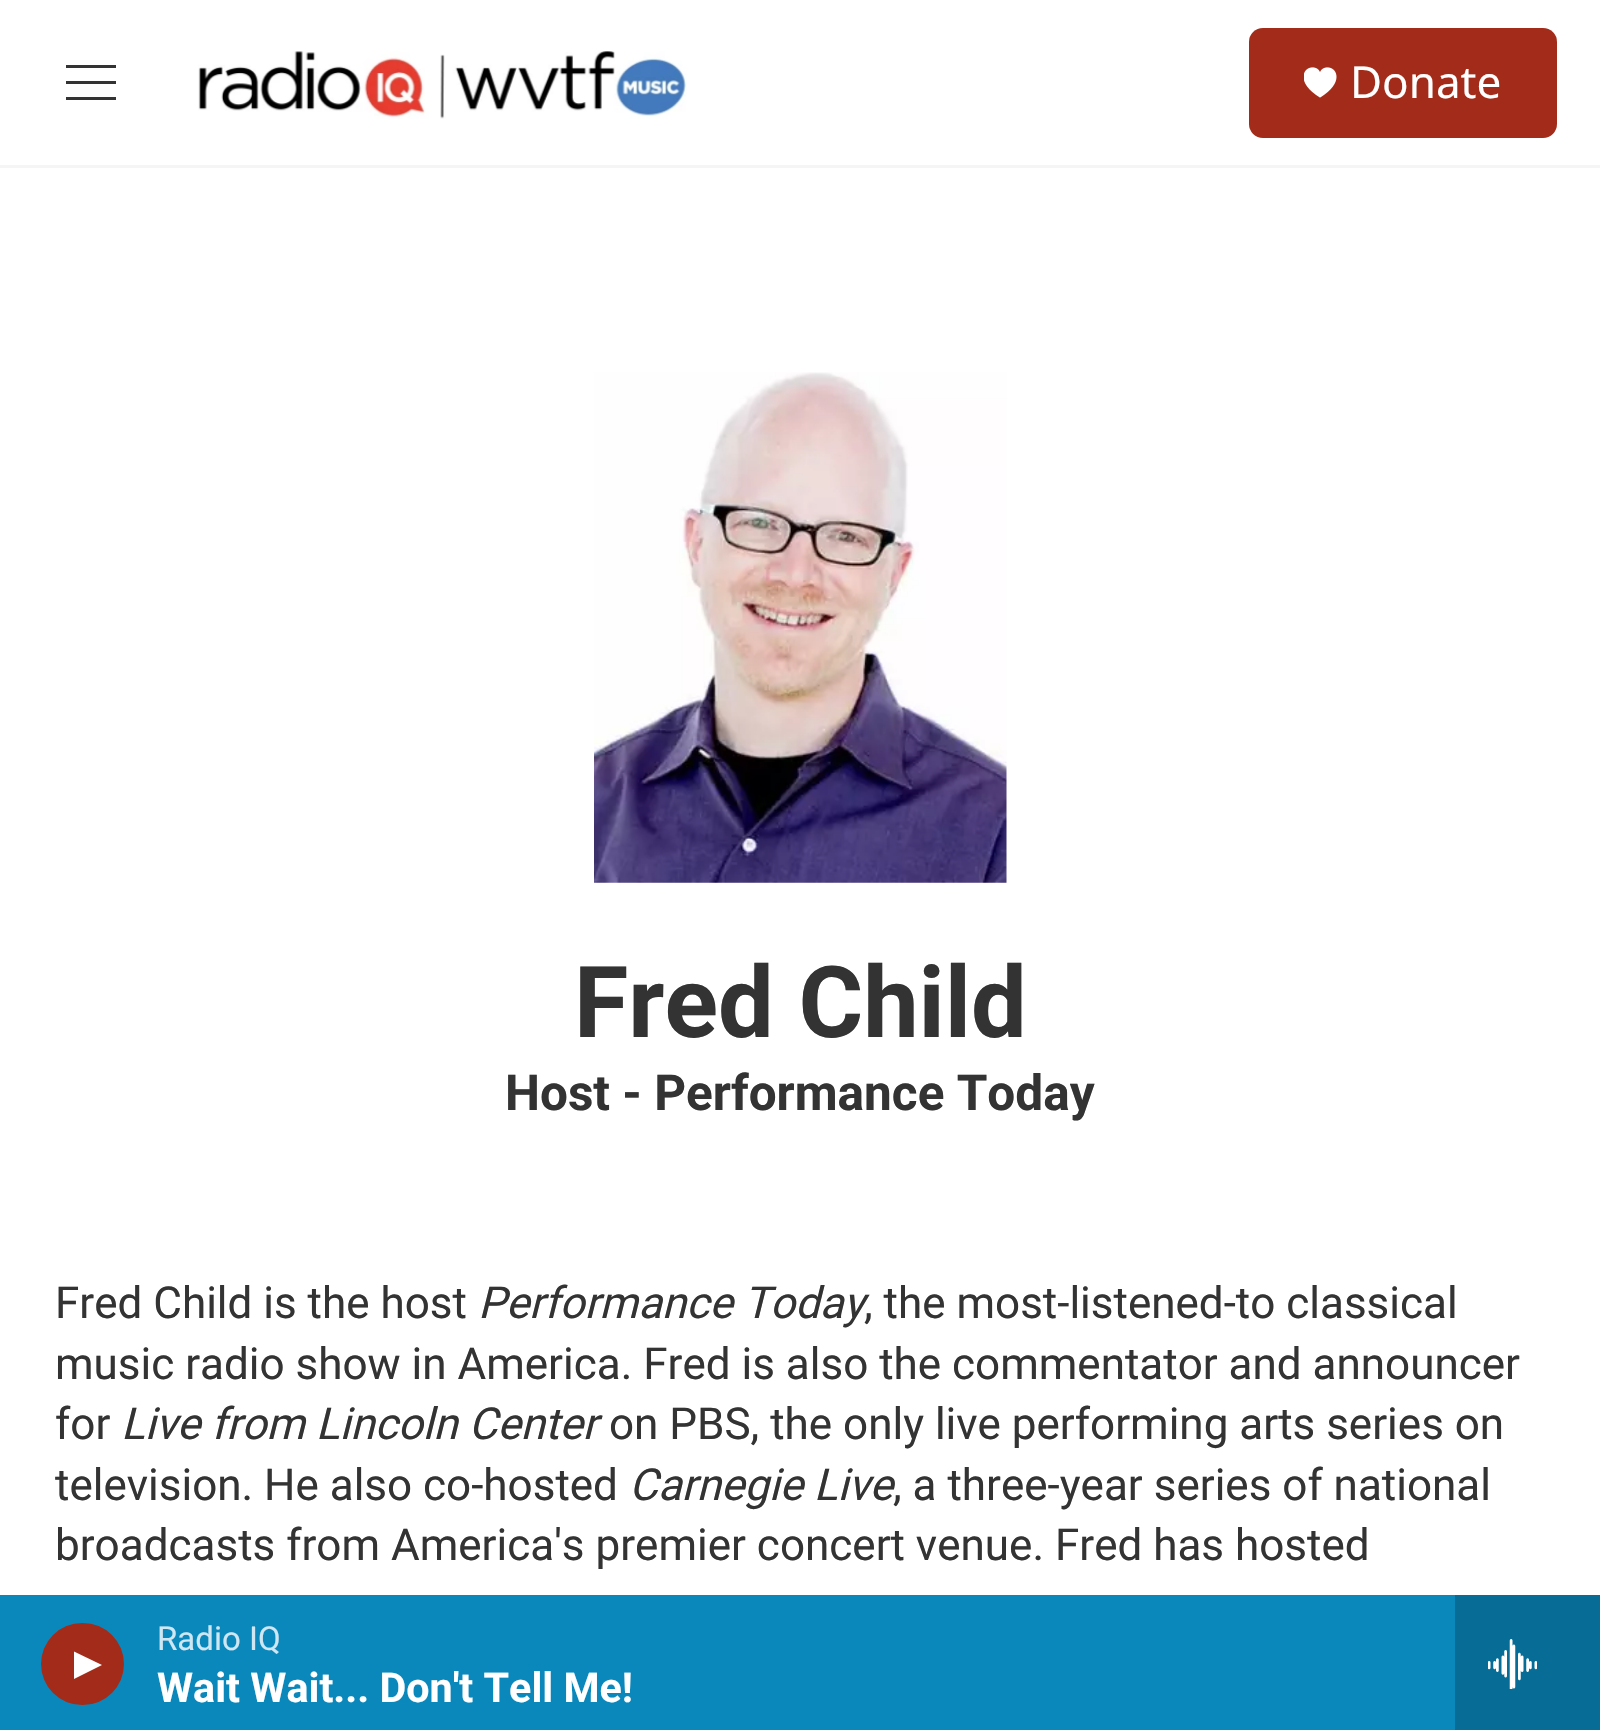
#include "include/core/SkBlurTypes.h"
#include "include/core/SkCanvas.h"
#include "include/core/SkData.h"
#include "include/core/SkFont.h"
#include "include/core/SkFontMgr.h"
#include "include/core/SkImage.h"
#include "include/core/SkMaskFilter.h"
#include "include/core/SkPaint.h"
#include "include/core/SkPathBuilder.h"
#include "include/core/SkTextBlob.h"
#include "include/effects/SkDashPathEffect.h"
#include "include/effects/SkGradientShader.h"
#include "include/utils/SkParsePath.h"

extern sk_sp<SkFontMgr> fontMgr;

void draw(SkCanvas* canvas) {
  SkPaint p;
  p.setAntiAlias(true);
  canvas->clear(SK_ColorWHITE);
  p.setColor(SkColorSetRGB(245, 245, 245));
  canvas->drawRect(SkRect::MakeLTRB(0, 165, 1600, 168), p);
  p.setColor(SkColorSetRGB(51, 51, 51));
  canvas->drawPath(SkPathBuilder(SkPathFillType::kEvenOdd).moveTo(66, 84).lineTo(66, 81).lineTo(116, 81).lineTo(116, 84).close().moveTo(66, 68).lineTo(66, 65).lineTo(116, 65).lineTo(116, 68).close().moveTo(66, 100).lineTo(66, 97).lineTo(116, 97).lineTo(116, 100).close().detach(), p);
  canvas->drawImageRect(SkImages::DeferredFromEncodedData(SkData::MakeFromFileName("images/1.png")), SkRect::MakeLTRB(198, 51, 687, 119), SkSamplingOptions());
  p.setColor(SkColorSetRGB(163, 43, 25));
  canvas->drawRoundRect(SkRect::MakeLTRB(1249, 28, 1557, 138), 14, 14, p);
  canvas->drawImageRect(SkImages::DeferredFromEncodedData(SkData::MakeFromFileName("images/2.png")), SkRect::MakeLTRB(1304, 67, 1337, 98), SkSamplingOptions());
  p.setColor(SkColorSetRGB(10, 136, 188));
  canvas->drawRect(SkRect::MakeLTRB(0, 1595, 1455, 1730), p);
  p.setColor(SkColorSetRGB(163, 43, 25));
  canvas->drawRoundRect(SkRect::MakeLTRB(41, 1623, 124, 1705), 41, 41, p);
  p.setColor(SK_ColorWHITE);
  canvas->drawPath(SkPathBuilder().moveTo(74, 1651.5f).lineTo(102, 1665).lineTo(74, 1679).close().detach(), p);
  p.setColor(SkColorSetRGB(8, 109, 150));
  canvas->drawRect(SkRect::MakeLTRB(1455, 1595, 1600, 1730), p);
  canvas->drawImageRect(SkImages::DeferredFromEncodedData(SkData::MakeFromFileName("images/3.png")), SkRect::MakeLTRB(1488, 1639, 1537, 1689), SkSamplingOptions());
  canvas->drawImageRect(SkImages::DeferredFromEncodedData(SkData::MakeFromFileName("images/4.png")), SkRect::MakeLTRB(594, 372, 1007, 883), SkSamplingOptions());
  SkFont font1(fontMgr->matchFamilyStyle("Noto Sans", SkFontStyle::Normal()), 44);
  font1.setSubpixel(true);
  p.setColor(SK_ColorWHITE);
  canvas->drawString("Donate", 1350, 98, font1, p);
  SkFont font2(fontMgr->matchFamilyStyle("Roboto", SkFontStyle::Normal()), 33);
  font2.setSubpixel(true);
  p.setColor(SkColorSetRGB(206, 231, 242));
  canvas->drawString("Radio IQ", 157, 1650, font2, p);
  SkFont font3(fontMgr->matchFamilyStyle("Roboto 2", SkFontStyle::Bold()), 41.25f);
  font3.setSubpixel(true);
  p.setColor(SK_ColorWHITE);
  canvas->drawString("Wait Wait... Don't Tell Me!", 157, 1702, font3, p);
  SkFont font4(fontMgr->matchFamilyStyle("Roboto", SkFontStyle::Bold()), 99);
  font4.setSubpixel(true);
  p.setColor(SkColorSetRGB(51, 51, 51));
  canvas->drawString("Fred Child", 574, 1037, font4, p);
  SkFont font5(fontMgr->matchFamilyStyle("Roboto", SkFontStyle::Bold()), 49.5f);
  font5.setSubpixel(true);
  canvas->drawString("Host - Performance Today", 505, 1110, font5, p);
  SkFont font6(fontMgr->matchFamilyStyle("Roboto", SkFontStyle::Normal()), 44);
  font6.setSubpixel(true);
  canvas->drawString("Fred Child is the host", 55, 1318, font6, p);
  SkFont font7(fontMgr->matchFamilyStyle("Roboto", SkFontStyle::Italic()), 44);
  font7.setSubpixel(true);
  canvas->drawString("Performance Today", 478, 1318, font7, p);
  canvas->drawString(", the most-listened-to classical", 864, 1318, font6, p);
  canvas->drawString("music radio show in America. Fred is also the commentator and announcer", 55, 1379, font6, p);
  canvas->drawString("for", 55, 1439, font6, p);
  canvas->drawString("Live from Lincoln Center", 121, 1439, font7, p);
  canvas->drawString("on PBS, the only live performing arts series on", 609, 1439, font6, p);
  canvas->drawString("television. He also co-hosted", 55, 1500, font6, p);
  canvas->drawString("Carnegie Live", 629, 1500, font7, p);
  canvas->drawString(", a three-year series of national", 893, 1500, font6, p);
  canvas->drawString("broadcasts from America's premier concert venue. Fred has hosted", 55, 1560, font6, p);
}
